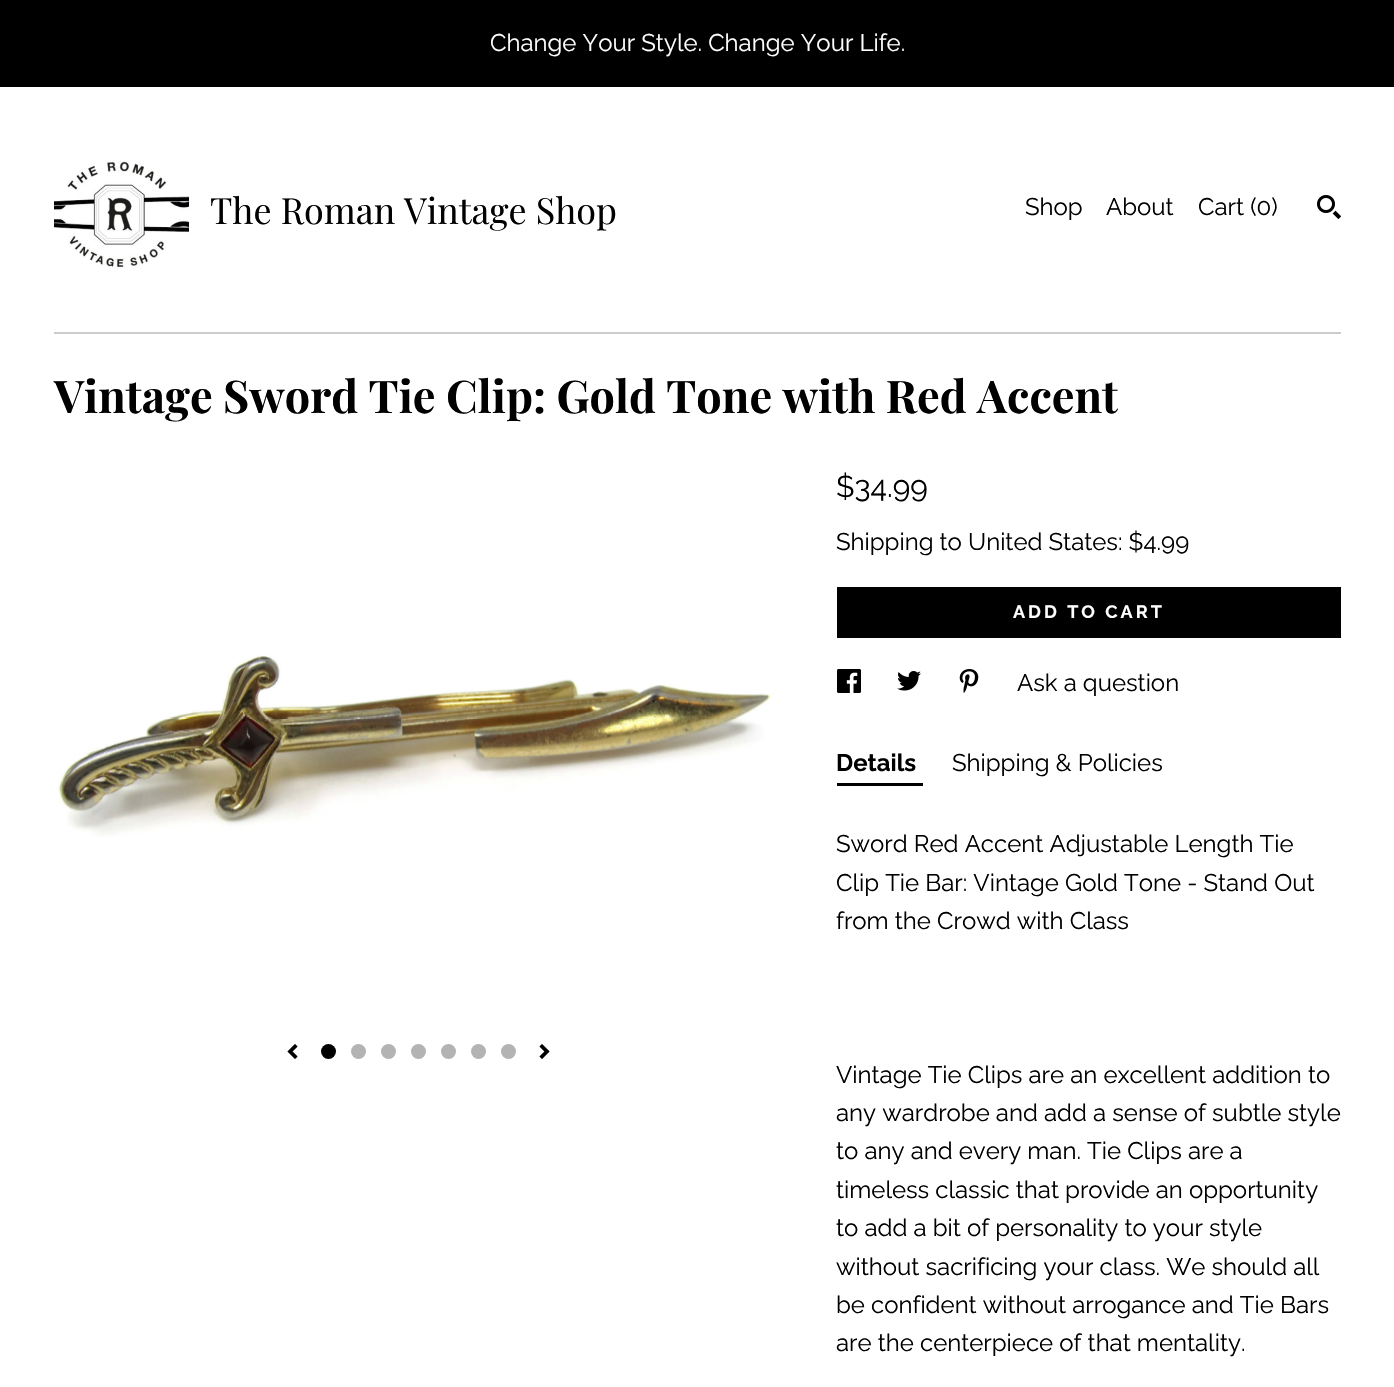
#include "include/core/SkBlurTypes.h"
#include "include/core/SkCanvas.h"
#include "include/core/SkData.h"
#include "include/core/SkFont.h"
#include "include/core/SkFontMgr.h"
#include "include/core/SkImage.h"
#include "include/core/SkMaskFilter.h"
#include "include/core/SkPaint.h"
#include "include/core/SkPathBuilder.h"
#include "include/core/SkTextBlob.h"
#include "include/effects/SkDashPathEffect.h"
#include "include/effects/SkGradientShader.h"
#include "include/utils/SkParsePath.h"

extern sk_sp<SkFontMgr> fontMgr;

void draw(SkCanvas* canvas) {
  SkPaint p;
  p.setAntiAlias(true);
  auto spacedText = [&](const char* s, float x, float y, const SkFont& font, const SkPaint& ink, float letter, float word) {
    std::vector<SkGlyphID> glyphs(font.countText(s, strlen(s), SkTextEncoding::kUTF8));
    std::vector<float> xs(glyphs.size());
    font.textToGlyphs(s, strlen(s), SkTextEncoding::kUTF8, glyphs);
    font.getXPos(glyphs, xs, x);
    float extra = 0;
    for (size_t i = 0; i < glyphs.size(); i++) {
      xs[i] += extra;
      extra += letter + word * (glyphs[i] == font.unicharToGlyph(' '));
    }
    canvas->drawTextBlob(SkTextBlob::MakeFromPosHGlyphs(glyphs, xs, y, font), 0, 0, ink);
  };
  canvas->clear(SK_ColorWHITE);
  p.setColor(SK_ColorBLACK);
  canvas->drawRect(SkRect::MakeLTRB(0, 0, 1394, 87), p);
  canvas->drawImageRect(SkImages::DeferredFromEncodedData(SkData::MakeFromFileName("images/1.png")), SkRect::MakeLTRB(54, 160, 189, 268), SkSamplingOptions());
  canvas->drawImageRect(SkImages::DeferredFromEncodedData(SkData::MakeFromFileName("images/2.png")), SkRect::MakeLTRB(1317, 195, 1341, 219), SkSamplingOptions());
  p.setColor(SkColorSetRGB(204, 204, 204));
  canvas->drawRect(SkRect::MakeLTRB(54, 332, 1341, 334), p);
  canvas->drawImageRect(SkImages::DeferredFromEncodedData(SkData::MakeFromFileName("images/3.png")), SkRect::MakeLTRB(58, 654, 772, 838), SkSamplingOptions());
  canvas->drawImageRect(SkImages::DeferredFromEncodedData(SkData::MakeFromFileName("images/4.png")), SkRect::MakeLTRB(287, 1044, 298, 1059), SkSamplingOptions());
  p.setColor(SK_ColorBLACK);
  canvas->drawCircle(328.5f, 1051.5f, 7.5f, p);
  p.setColor(SkColorSetRGB(179, 179, 179));
  canvas->drawCircle(358.5f, 1051.5f, 7.5f, p);
  canvas->drawCircle(388.5f, 1051.5f, 7.5f, p);
  canvas->drawCircle(418.5f, 1051.5f, 7.5f, p);
  canvas->drawCircle(448.5f, 1051.5f, 7.5f, p);
  canvas->drawCircle(478.5f, 1051.5f, 7.5f, p);
  canvas->drawCircle(508.5f, 1051.5f, 7.5f, p);
  canvas->drawImageRect(SkImages::DeferredFromEncodedData(SkData::MakeFromFileName("images/5.png")), SkRect::MakeLTRB(539, 1044, 550, 1059), SkSamplingOptions());
  p.setColor(SK_ColorBLACK);
  canvas->drawRect(SkRect::MakeLTRB(837, 587, 1341, 638), p);
  canvas->drawImageRect(SkImages::DeferredFromEncodedData(SkData::MakeFromFileName("images/6.png")), SkRect::MakeLTRB(837, 669, 861, 693), SkSamplingOptions());
  canvas->drawImageRect(SkImages::DeferredFromEncodedData(SkData::MakeFromFileName("images/7.png")), SkRect::MakeLTRB(897, 671, 921, 691), SkSamplingOptions());
  canvas->drawImageRect(SkImages::DeferredFromEncodedData(SkData::MakeFromFileName("images/8.png")), SkRect::MakeLTRB(959, 669, 979, 693), SkSamplingOptions());
  canvas->drawRect(SkRect::MakeLTRB(837, 783, 923, 786), p);
  SkFont font1(fontMgr->matchFamilyStyle("Raleway", SkFontStyle::Normal()), 24);
  font1.setSubpixel(true);
  p.setColor(SK_ColorWHITE);
  canvas->drawString("Change Your Style. Change Your Life.", 490, 51, font1, p);
  SkFont font2(fontMgr->matchFamilyStyle("Playfair Display", SkFontStyle::Normal()), 36);
  font2.setSubpixel(true);
  p.setColor(SK_ColorBLACK);
  canvas->drawString("The Roman Vintage Shop", 210, 224, font2, p);
  canvas->drawString("Shop", 1025, 215, font1, p);
  canvas->drawString("About", 1106, 215, font1, p);
  canvas->drawString("Cart (0)", 1198, 215, font1, p);
  SkFont font3(fontMgr->matchFamilyStyle("Playfair Display", SkFontStyle::Bold()), 45);
  font3.setSubpixel(true);
  canvas->drawString("Vintage Sword Tie Clip: Gold Tone with Red Accent", 54, 413, font3, p);
  SkFont font4(fontMgr->matchFamilyStyle("Raleway", SkFontStyle::Normal()), 30);
  font4.setSubpixel(true);
  canvas->drawString("$34.99", 836, 497, font4, p);
  canvas->drawString("Shipping to United States: $4.99", 836, 550, font1, p);
  SkFont font5(fontMgr->matchFamilyStyle("Raleway", SkFontStyle::Bold()), 18);
  font5.setSubpixel(true);
  p.setColor(SK_ColorWHITE);
  spacedText("ADD TO CART", 1013, 618, font5, p, 3, 0);
  p.setColor(SK_ColorBLACK);
  canvas->drawString("Ask a question", 1017, 691, font1, p);
  SkFont font6(fontMgr->matchFamilyStyle("Raleway", SkFontStyle::Bold()), 24);
  font6.setSubpixel(true);
  canvas->drawString("Details", 836, 771, font6, p);
  canvas->drawString("Shipping & Policies", 952, 771, font1, p);
  canvas->drawString("Sword Red Accent Adjustable Length Tie", 836, 852, font1, p);
  canvas->drawString("Clip Tie Bar: Vintage Gold Tone - Stand Out", 836, 891, font1, p);
  canvas->drawString("from the Crowd with Class", 836, 929, font1, p);
  canvas->drawString("Vintage Tie Clips are an excellent addition to", 836, 1083, font1, p);
  canvas->drawString("any wardrobe and add a sense of subtle style", 836, 1121, font1, p);
  canvas->drawString("to any and every man. Tie Clips are a", 836, 1159, font1, p);
  canvas->drawString("timeless classic that provide an opportunity", 836, 1198, font1, p);
  canvas->drawString("to add a bit of personality to your style", 836, 1236, font1, p);
  canvas->drawString("without sacrificing your class. We should all", 836, 1275, font1, p);
  canvas->drawString("be confident without arrogance and Tie Bars", 836, 1313, font1, p);
  canvas->drawString("are the centerpiece of that mentality.", 836, 1351, font1, p);
}
